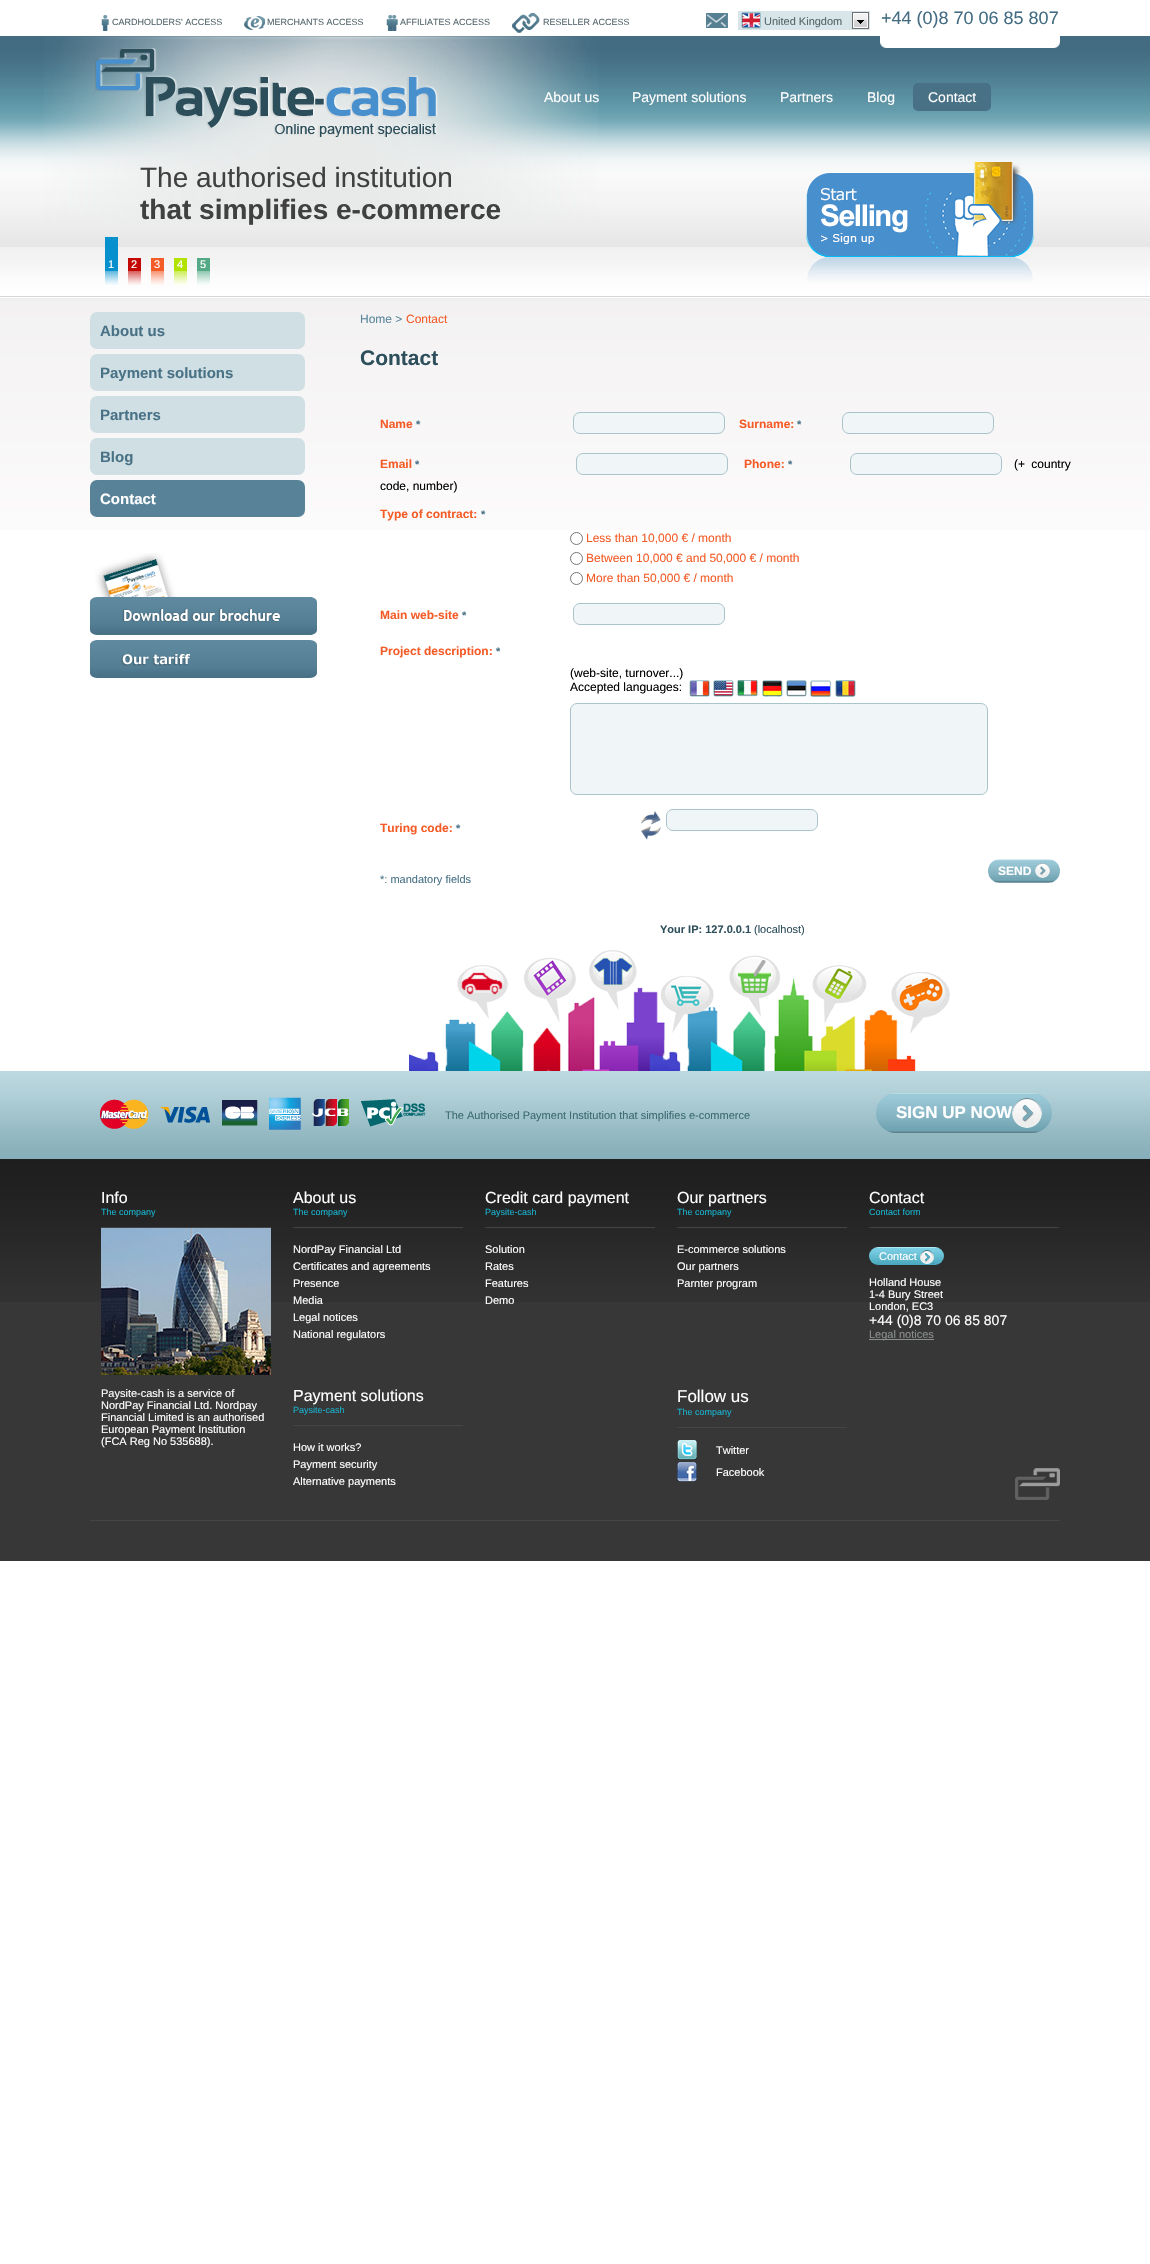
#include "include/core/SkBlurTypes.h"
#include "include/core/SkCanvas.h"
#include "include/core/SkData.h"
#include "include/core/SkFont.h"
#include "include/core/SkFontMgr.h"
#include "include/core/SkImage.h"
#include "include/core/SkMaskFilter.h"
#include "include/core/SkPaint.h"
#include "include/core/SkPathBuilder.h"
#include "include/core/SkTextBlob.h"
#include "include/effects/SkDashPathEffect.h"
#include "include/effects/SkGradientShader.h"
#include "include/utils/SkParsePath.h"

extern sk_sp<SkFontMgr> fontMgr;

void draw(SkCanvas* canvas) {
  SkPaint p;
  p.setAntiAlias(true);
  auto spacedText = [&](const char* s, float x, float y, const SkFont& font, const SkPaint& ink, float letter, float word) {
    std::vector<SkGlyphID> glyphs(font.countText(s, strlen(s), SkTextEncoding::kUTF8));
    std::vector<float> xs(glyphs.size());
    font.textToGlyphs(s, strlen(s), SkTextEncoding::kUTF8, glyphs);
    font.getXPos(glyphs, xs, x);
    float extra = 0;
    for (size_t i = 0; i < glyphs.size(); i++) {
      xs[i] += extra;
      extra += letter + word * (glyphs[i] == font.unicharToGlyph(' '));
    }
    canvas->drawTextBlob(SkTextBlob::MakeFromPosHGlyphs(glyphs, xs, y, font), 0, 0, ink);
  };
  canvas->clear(SK_ColorWHITE);
  canvas->drawImageRect(SkImages::DeferredFromEncodedData(SkData::MakeFromFileName("images/1.png")), SkRect::MakeLTRB(0, 36, 1150, 530), SkSamplingOptions());
  canvas->drawImageRect(SkImages::DeferredFromEncodedData(SkData::MakeFromFileName("images/2.png")), SkRect::MakeLTRB(101, 15, 109, 31), SkSamplingOptions());
  canvas->drawImageRect(SkImages::DeferredFromEncodedData(SkData::MakeFromFileName("images/3.png")), SkRect::MakeLTRB(244, 16, 265, 30), SkSamplingOptions());
  canvas->drawImageRect(SkImages::DeferredFromEncodedData(SkData::MakeFromFileName("images/4.png")), SkRect::MakeLTRB(386, 15, 398, 31), SkSamplingOptions());
  canvas->drawImageRect(SkImages::DeferredFromEncodedData(SkData::MakeFromFileName("images/5.png")), SkRect::MakeLTRB(512, 13, 540, 33), SkSamplingOptions());
  canvas->drawImageRect(SkImages::DeferredFromEncodedData(SkData::MakeFromFileName("images/6.png")), SkRect::MakeLTRB(706, 13, 728, 28), SkSamplingOptions());
  p.setColor(SkColorSetRGB(216, 230, 233));
  canvas->drawRect(SkRect::MakeLTRB(738, 11, 870, 30), p);
  canvas->drawImageRect(SkImages::DeferredFromEncodedData(SkData::MakeFromFileName("images/7.png")), SkRect::MakeLTRB(852, 12, 869, 29), SkSamplingOptions());
  canvas->drawImageRect(SkImages::DeferredFromEncodedData(SkData::MakeFromFileName("images/8.png")), SkRect::MakeLTRB(741, 12, 761, 29), SkSamplingOptions());
  canvas->drawImageRect(SkImages::DeferredFromEncodedData(SkData::MakeFromFileName("images/9.png")), SkRect::MakeLTRB(880, 36, 1060, 48), SkSamplingOptions());
  canvas->drawImageRect(SkImages::DeferredFromEncodedData(SkData::MakeFromFileName("images/10.png")), SkRect::MakeLTRB(44, 36, 599, 223), SkSamplingOptions());
  canvas->drawImageRect(SkImages::DeferredFromEncodedData(SkData::MakeFromFileName("images/11.png")), SkRect::MakeLTRB(95, 48, 438, 137), SkSamplingOptions());
  p.setColor(SkColorSetRGB(72, 113, 134));
  canvas->drawRoundRect(SkRect::MakeLTRB(913, 83, 991, 111), 5, 5, p);
  canvas->drawImageRect(SkImages::DeferredFromEncodedData(SkData::MakeFromFileName("images/12.png")), SkRect::MakeLTRB(806, 162, 1034, 282), SkSamplingOptions());
  p.setColor(SkColorSetRGB(6, 144, 206));
  canvas->drawRect(SkRect::MakeLTRB(105, 237, 118, 286), p);
  canvas->drawImageRect(SkImages::DeferredFromEncodedData(SkData::MakeFromFileName("images/13.png")), SkRect::MakeLTRB(105, 271, 118, 286), SkSamplingOptions());
  p.setColor(SkColorSetRGB(195, 7, 3));
  canvas->drawRect(SkRect::MakeLTRB(128, 258, 141, 286), p);
  canvas->drawImageRect(SkImages::DeferredFromEncodedData(SkData::MakeFromFileName("images/14.png")), SkRect::MakeLTRB(128, 271, 141, 286), SkSamplingOptions());
  p.setColor(SkColorSetRGB(244, 91, 38));
  canvas->drawRect(SkRect::MakeLTRB(151, 258, 164, 286), p);
  canvas->drawImageRect(SkImages::DeferredFromEncodedData(SkData::MakeFromFileName("images/15.png")), SkRect::MakeLTRB(151, 271, 164, 286), SkSamplingOptions());
  p.setColor(SkColorSetRGB(178, 226, 0));
  canvas->drawRect(SkRect::MakeLTRB(174, 258, 187, 286), p);
  canvas->drawImageRect(SkImages::DeferredFromEncodedData(SkData::MakeFromFileName("images/16.png")), SkRect::MakeLTRB(174, 271, 187, 286), SkSamplingOptions());
  p.setColor(SkColorSetRGB(84, 169, 134));
  canvas->drawRect(SkRect::MakeLTRB(197, 258, 210, 286), p);
  canvas->drawImageRect(SkImages::DeferredFromEncodedData(SkData::MakeFromFileName("images/17.png")), SkRect::MakeLTRB(197, 271, 210, 286), SkSamplingOptions());
  p.setColor(SkColorSetRGB(208, 223, 227));
  canvas->drawRoundRect(SkRect::MakeLTRB(90, 312, 305, 349), 7, 7, p);
  canvas->drawRoundRect(SkRect::MakeLTRB(90, 354, 305, 391), 7, 7, p);
  canvas->drawRoundRect(SkRect::MakeLTRB(90, 396, 305, 433), 7, 7, p);
  canvas->drawRoundRect(SkRect::MakeLTRB(90, 438, 305, 475), 7, 7, p);
  p.setColor(SkColorSetRGB(88, 130, 152));
  canvas->drawRoundRect(SkRect::MakeLTRB(90, 480, 305, 517), 7, 7, p);
  canvas->drawImageRect(SkImages::DeferredFromEncodedData(SkData::MakeFromFileName("images/18.png")), SkRect::MakeLTRB(90, 553, 317, 635), SkSamplingOptions());
  canvas->drawImageRect(SkImages::DeferredFromEncodedData(SkData::MakeFromFileName("images/19.png")), SkRect::MakeLTRB(90, 640, 317, 678), SkSamplingOptions());
  canvas->drawImageRect(SkImages::DeferredFromEncodedData(SkData::MakeFromFileName("images/20.png")), SkRect::MakeLTRB(409, 950, 950, 1071), SkSamplingOptions());
  p.setColor(SkColorSetRGB(240, 245, 247));
  canvas->drawRoundRect(SkRect::MakeLTRB(573.5f, 412.5f, 724.5f, 433.5f), 6.5f, 6.5f, p);
  p.setStyle(SkPaint::kStroke_Style);
  p.setStrokeWidth(1);
  p.setColor(SkColorSetRGB(170, 196, 203));
  canvas->drawRoundRect(SkRect::MakeLTRB(573.5f, 412.5f, 724.5f, 433.5f), 6.5f, 6.5f, p);
  p.setStyle(SkPaint::kFill_Style);
  p.setColor(SkColorSetRGB(240, 245, 247));
  canvas->drawRoundRect(SkRect::MakeLTRB(842.5f, 412.5f, 993.5f, 433.5f), 6.5f, 6.5f, p);
  p.setStyle(SkPaint::kStroke_Style);
  p.setColor(SkColorSetRGB(170, 196, 203));
  canvas->drawRoundRect(SkRect::MakeLTRB(842.5f, 412.5f, 993.5f, 433.5f), 6.5f, 6.5f, p);
  p.setStyle(SkPaint::kFill_Style);
  p.setColor(SkColorSetRGB(240, 245, 247));
  canvas->drawRoundRect(SkRect::MakeLTRB(576.5f, 453.5f, 727.5f, 474.5f), 6.5f, 6.5f, p);
  p.setStyle(SkPaint::kStroke_Style);
  p.setColor(SkColorSetRGB(170, 196, 203));
  canvas->drawRoundRect(SkRect::MakeLTRB(576.5f, 453.5f, 727.5f, 474.5f), 6.5f, 6.5f, p);
  p.setStyle(SkPaint::kFill_Style);
  p.setColor(SkColorSetRGB(240, 245, 247));
  canvas->drawRoundRect(SkRect::MakeLTRB(850.5f, 453.5f, 1001.5f, 474.5f), 6.5f, 6.5f, p);
  p.setStyle(SkPaint::kStroke_Style);
  p.setColor(SkColorSetRGB(170, 196, 203));
  canvas->drawRoundRect(SkRect::MakeLTRB(850.5f, 453.5f, 1001.5f, 474.5f), 6.5f, 6.5f, p);
  p.setColor(SkColorSetRGB(118, 118, 118));
  canvas->drawCircle(576.5f, 538.5f, 6, p);
  canvas->drawCircle(576.5f, 558.5f, 6, p);
  canvas->drawCircle(576.5f, 578.5f, 6, p);
  p.setStyle(SkPaint::kFill_Style);
  p.setColor(SkColorSetRGB(240, 245, 247));
  canvas->drawRoundRect(SkRect::MakeLTRB(573.5f, 603.5f, 724.5f, 624.5f), 6.5f, 6.5f, p);
  p.setStyle(SkPaint::kStroke_Style);
  p.setColor(SkColorSetRGB(170, 196, 203));
  canvas->drawRoundRect(SkRect::MakeLTRB(573.5f, 603.5f, 724.5f, 624.5f), 6.5f, 6.5f, p);
  canvas->drawImageRect(SkImages::DeferredFromEncodedData(SkData::MakeFromFileName("images/21.png")), SkRect::MakeLTRB(689, 680, 710, 697), SkSamplingOptions());
  canvas->drawImageRect(SkImages::DeferredFromEncodedData(SkData::MakeFromFileName("images/22.png")), SkRect::MakeLTRB(713, 680, 734, 697), SkSamplingOptions());
  canvas->drawImageRect(SkImages::DeferredFromEncodedData(SkData::MakeFromFileName("images/23.png")), SkRect::MakeLTRB(737, 680, 758, 697), SkSamplingOptions());
  canvas->drawImageRect(SkImages::DeferredFromEncodedData(SkData::MakeFromFileName("images/24.png")), SkRect::MakeLTRB(762, 680, 783, 697), SkSamplingOptions());
  canvas->drawImageRect(SkImages::DeferredFromEncodedData(SkData::MakeFromFileName("images/25.png")), SkRect::MakeLTRB(786, 680, 807, 697), SkSamplingOptions());
  canvas->drawImageRect(SkImages::DeferredFromEncodedData(SkData::MakeFromFileName("images/26.png")), SkRect::MakeLTRB(810, 680, 831, 697), SkSamplingOptions());
  canvas->drawImageRect(SkImages::DeferredFromEncodedData(SkData::MakeFromFileName("images/27.png")), SkRect::MakeLTRB(835, 680, 856, 697), SkSamplingOptions());
  p.setStyle(SkPaint::kFill_Style);
  p.setColor(SkColorSetRGB(240, 245, 247));
  canvas->drawRoundRect(SkRect::MakeLTRB(570.5f, 703.5f, 987.5f, 794.5f), 6.5f, 6.5f, p);
  p.setStyle(SkPaint::kStroke_Style);
  p.setColor(SkColorSetRGB(170, 196, 203));
  canvas->drawRoundRect(SkRect::MakeLTRB(570.5f, 703.5f, 987.5f, 794.5f), 6.5f, 6.5f, p);
  canvas->drawImageRect(SkImages::DeferredFromEncodedData(SkData::MakeFromFileName("images/28.png")), SkRect::MakeLTRB(641, 811, 661, 840), SkSamplingOptions());
  p.setStyle(SkPaint::kFill_Style);
  p.setColor(SkColorSetRGB(240, 245, 247));
  canvas->drawRoundRect(SkRect::MakeLTRB(666.5f, 809.5f, 817.5f, 830.5f), 6.5f, 6.5f, p);
  p.setStyle(SkPaint::kStroke_Style);
  p.setColor(SkColorSetRGB(170, 196, 203));
  canvas->drawRoundRect(SkRect::MakeLTRB(666.5f, 809.5f, 817.5f, 830.5f), 6.5f, 6.5f, p);
  canvas->drawImageRect(SkImages::DeferredFromEncodedData(SkData::MakeFromFileName("images/29.png")), SkRect::MakeLTRB(988, 859, 1060, 883), SkSamplingOptions());
  canvas->drawImageRect(SkImages::DeferredFromEncodedData(SkData::MakeFromFileName("images/30.png")), SkRect::MakeLTRB(1035, 863, 1050, 878), SkSamplingOptions());
  p.setStyle(SkPaint::kFill_Style);
  p.setColor(SkColorSetRGB(55, 55, 55));
  canvas->drawRect(SkRect::MakeLTRB(0, 1302, 1150, 1561), p);
  canvas->drawImageRect(SkImages::DeferredFromEncodedData(SkData::MakeFromFileName("images/31.png")), SkRect::MakeLTRB(0, 1159, 1150, 1302), SkSamplingOptions());
  canvas->drawImageRect(SkImages::DeferredFromEncodedData(SkData::MakeFromFileName("images/32.png")), SkRect::MakeLTRB(0, 1071, 1150, 1159), SkSamplingOptions());
  canvas->drawImageRect(SkImages::DeferredFromEncodedData(SkData::MakeFromFileName("images/33.png")), SkRect::MakeLTRB(100, 1099, 149, 1129), SkSamplingOptions());
  canvas->drawImageRect(SkImages::DeferredFromEncodedData(SkData::MakeFromFileName("images/34.png")), SkRect::MakeLTRB(160, 1106, 210, 1123), SkSamplingOptions());
  canvas->drawImageRect(SkImages::DeferredFromEncodedData(SkData::MakeFromFileName("images/35.png")), SkRect::MakeLTRB(222, 1100, 258, 1126), SkSamplingOptions());
  canvas->drawImageRect(SkImages::DeferredFromEncodedData(SkData::MakeFromFileName("images/36.png")), SkRect::MakeLTRB(269, 1097, 301, 1130), SkSamplingOptions());
  canvas->drawImageRect(SkImages::DeferredFromEncodedData(SkData::MakeFromFileName("images/37.png")), SkRect::MakeLTRB(312, 1099, 349, 1126), SkSamplingOptions());
  canvas->drawImageRect(SkImages::DeferredFromEncodedData(SkData::MakeFromFileName("images/38.png")), SkRect::MakeLTRB(361, 1099, 426, 1127), SkSamplingOptions());
  canvas->drawImageRect(SkImages::DeferredFromEncodedData(SkData::MakeFromFileName("images/39.png")), SkRect::MakeLTRB(876, 1093, 1052, 1133), SkSamplingOptions());
  canvas->drawImageRect(SkImages::DeferredFromEncodedData(SkData::MakeFromFileName("images/40.png")), SkRect::MakeLTRB(1012, 1098, 1042, 1128), SkSamplingOptions());
  canvas->drawImageRect(SkImages::DeferredFromEncodedData(SkData::MakeFromFileName("images/41.png")), SkRect::MakeLTRB(1015, 1468, 1060, 1500), SkSamplingOptions());
  p.setColor(SkColorSetRGB(68, 68, 68));
  canvas->drawRect(SkRect::MakeLTRB(90, 1520, 1060, 1521), p);
  canvas->drawRect(SkRect::MakeLTRB(101, 1227, 271, 1228), p);
  canvas->drawImageRect(SkImages::DeferredFromEncodedData(SkData::MakeFromFileName("images/42.png")), SkRect::MakeLTRB(101, 1228, 271, 1375), SkSamplingOptions());
  canvas->drawRect(SkRect::MakeLTRB(293, 1227, 463, 1228), p);
  canvas->drawRect(SkRect::MakeLTRB(293, 1425, 463, 1426), p);
  canvas->drawRect(SkRect::MakeLTRB(485, 1227, 655, 1228), p);
  canvas->drawRect(SkRect::MakeLTRB(677, 1227, 847, 1228), p);
  canvas->drawRect(SkRect::MakeLTRB(677, 1427, 847, 1428), p);
  canvas->drawImageRect(SkImages::DeferredFromEncodedData(SkData::MakeFromFileName("images/43.png")), SkRect::MakeLTRB(677, 1440, 697, 1460), SkSamplingOptions());
  canvas->drawImageRect(SkImages::DeferredFromEncodedData(SkData::MakeFromFileName("images/44.png")), SkRect::MakeLTRB(677, 1462, 697, 1482), SkSamplingOptions());
  canvas->drawRect(SkRect::MakeLTRB(869, 1227, 1059, 1228), p);
  canvas->drawImageRect(SkImages::DeferredFromEncodedData(SkData::MakeFromFileName("images/45.png")), SkRect::MakeLTRB(869, 1247, 944, 1265), SkSamplingOptions());
  canvas->drawImageRect(SkImages::DeferredFromEncodedData(SkData::MakeFromFileName("images/46.png")), SkRect::MakeLTRB(920, 1250, 934, 1264), SkSamplingOptions());
  p.setColor(SkColorSetRGB(139, 143, 144));
  canvas->drawRect(SkRect::MakeLTRB(869, 1339, 934, 1340), p);
  SkFont font1(fontMgr->matchFamilyStyle("Liberation Sans", SkFontStyle::Normal()), 9);
  font1.setSubpixel(true);
  p.setColor(SkColorSetRGB(84, 101, 107));
  canvas->drawString("CARDHOLDERS' ACCESS", 112, 25, font1, p);
  canvas->drawString("MERCHANTS ACCESS", 267, 25, font1, p);
  canvas->drawString("AFFILIATES ACCESS", 400, 25, font1, p);
  canvas->drawString("RESELLER ACCESS", 543, 25, font1, p);
  SkFont font2(fontMgr->matchFamilyStyle("Liberation Sans", SkFontStyle::Normal()), 11);
  font2.setSubpixel(true);
  canvas->drawString("United Kingdom", 764, 25, font2, p);
  SkFont font3(fontMgr->matchFamilyStyle("Liberation Sans", SkFontStyle::Normal()), 18);
  font3.setSubpixel(true);
  p.setColor(SkColorSetRGB(67, 108, 130));
  canvas->drawString("+44 (0)8 70 06 85 807", 881, 24, font3, p);
  SkFont font4(fontMgr->matchFamilyStyle("Liberation Sans", SkFontStyle::Normal()), 14);
  font4.setSubpixel(true);
  p.setColor(SK_ColorWHITE);
  canvas->drawString("About us", 544, 102, font4, p);
  canvas->drawString("Payment solutions", 632, 102, font4, p);
  canvas->drawString("Partners", 780, 102, font4, p);
  canvas->drawString("Blog", 867, 102, font4, p);
  canvas->drawString("Contact", 928, 102, font4, p);
  SkFont font5(fontMgr->matchFamilyStyle("Liberation Sans", SkFontStyle::Normal()), 28);
  font5.setSubpixel(true);
  p.setColor(SkColorSetRGB(64, 64, 64));
  canvas->drawString("The authorised institution", 140, 187, font5, p);
  SkFont font6(fontMgr->matchFamilyStyle("Liberation Sans", SkFontStyle::Bold()), 28);
  font6.setSubpixel(true);
  canvas->drawString("that simplifies e-commerce", 140, 219, font6, p);
  p.setColor(SK_ColorWHITE);
  canvas->drawString("1", 108, 268, font2, p);
  canvas->drawString("2", 131, 268, font2, p);
  canvas->drawString("3", 154, 268, font2, p);
  canvas->drawString("4", 177, 268, font2, p);
  canvas->drawString("5", 200, 268, font2, p);
  SkFont font7(fontMgr->matchFamilyStyle("Liberation Sans", SkFontStyle::Bold()), 15);
  font7.setSubpixel(true);
  p.setColor(SkColorSetRGB(73, 114, 135));
  canvas->drawString("About us", 100, 336, font7, p);
  canvas->drawString("Payment solutions", 100, 378, font7, p);
  canvas->drawString("Partners", 100, 420, font7, p);
  canvas->drawString("Blog", 100, 462, font7, p);
  p.setColor(SK_ColorWHITE);
  canvas->drawString("Contact", 100, 504, font7, p);
  SkFont font8(fontMgr->matchFamilyStyle("Liberation Sans", SkFontStyle::Normal()), 12);
  font8.setSubpixel(true);
  p.setColor(SkColorSetRGB(91, 134, 156));
  canvas->drawString("Home >", 360, 323, font8, p);
  p.setColor(SkColorSetRGB(244, 91, 38));
  canvas->drawString("Contact", 406, 323, font8, p);
  SkFont font9(fontMgr->matchFamilyStyle("Liberation Sans", SkFontStyle::Bold()), 21);
  font9.setSubpixel(true);
  p.setColor(SkColorSetRGB(45, 78, 91));
  canvas->drawString("Contact", 360, 365, font9, p);
  SkFont font10(fontMgr->matchFamilyStyle("Liberation Sans", SkFontStyle::Bold()), 12);
  font10.setSubpixel(true);
  p.setColor(SkColorSetRGB(244, 91, 38));
  canvas->drawString("Name", 380, 428, font10, p);
  SkFont font11(fontMgr->matchFamilyStyle("Liberation Sans", SkFontStyle::Bold()), 11);
  font11.setSubpixel(true);
  p.setColor(SkColorSetRGB(73, 114, 135));
  canvas->drawString("*", 416, 428, font11, p);
  p.setColor(SkColorSetRGB(244, 91, 38));
  canvas->drawString("Surname:", 739, 428, font10, p);
  p.setColor(SkColorSetRGB(73, 114, 135));
  canvas->drawString("*", 797, 428, font11, p);
  p.setColor(SkColorSetRGB(244, 91, 38));
  canvas->drawString("Email", 380, 468, font10, p);
  p.setColor(SkColorSetRGB(73, 114, 135));
  canvas->drawString("*", 415, 468, font11, p);
  p.setColor(SkColorSetRGB(244, 91, 38));
  canvas->drawString("Phone:", 744, 468, font10, p);
  p.setColor(SkColorSetRGB(73, 114, 135));
  canvas->drawString("*", 788, 468, font11, p);
  p.setColor(SK_ColorBLACK);
  spacedText("(+ country", 1014, 468, font8, p, 0, 3);
  canvas->drawString("code, number)", 380, 490, font8, p);
  p.setColor(SkColorSetRGB(244, 91, 38));
  canvas->drawString("Type of contract:", 380, 518, font10, p);
  p.setColor(SkColorSetRGB(73, 114, 135));
  canvas->drawString("*", 481, 518, font11, p);
  p.setColor(SkColorSetRGB(244, 91, 38));
  canvas->drawString("Less than 10,000 € / month", 586, 542, font8, p);
  canvas->drawString("Between 10,000 € and 50,000 € / month", 586, 562, font8, p);
  canvas->drawString("More than 50,000 € / month", 586, 582, font8, p);
  canvas->drawString("Main web-site", 380, 619, font10, p);
  p.setColor(SkColorSetRGB(73, 114, 135));
  canvas->drawString("*", 462, 619, font11, p);
  p.setColor(SkColorSetRGB(244, 91, 38));
  canvas->drawString("Project description:", 380, 655, font10, p);
  p.setColor(SkColorSetRGB(73, 114, 135));
  canvas->drawString("*", 496, 655, font11, p);
  p.setColor(SK_ColorBLACK);
  canvas->drawString("(web-site, turnover...)", 570, 677, font8, p);
  canvas->drawString("Accepted languages:", 570, 691, font8, p);
  p.setColor(SkColorSetRGB(244, 91, 38));
  canvas->drawString("Turing code:", 380, 832, font10, p);
  p.setColor(SkColorSetRGB(73, 114, 135));
  canvas->drawString("*", 456, 832, font11, p);
  p.setColor(SK_ColorWHITE);
  canvas->drawString("SEND", 998, 875, font10, p);
  p.setColor(SkColorSetRGB(73, 114, 135));
  canvas->drawString("*: mandatory fields", 380, 883, font2, p);
  p.setColor(SkColorSetRGB(45, 78, 91));
  canvas->drawString("Your IP: 127.0.0.1", 660, 933, font11, p);
  canvas->drawString("(localhost)", 754, 933, font2, p);
  p.setColor(SkColorSetRGB(61, 107, 112));
  canvas->drawString("The Authorised Payment Institution that simplifies e-commerce", 445, 1119, font2, p);
  SkFont font12(fontMgr->matchFamilyStyle("Liberation Sans", SkFontStyle::Bold()), 17);
  font12.setSubpixel(true);
  p.setColor(SK_ColorWHITE);
  canvas->drawString("SIGN UP NOW", 896, 1118, font12, p);
  SkFont font13(fontMgr->matchFamilyStyle("Liberation Sans", SkFontStyle::Normal()), 16);
  font13.setSubpixel(true);
  canvas->drawString("Info", 101, 1203, font13, p);
  p.setColor(SkColorSetRGB(23, 178, 206));
  canvas->drawString("The company", 101, 1215, font1, p);
  p.setColor(SK_ColorWHITE);
  canvas->drawString("Paysite-cash is a service of", 101, 1397, font2, p);
  canvas->drawString("NordPay Financial Ltd. Nordpay", 101, 1409, font2, p);
  canvas->drawString("Financial Limited is an authorised", 101, 1421, font2, p);
  canvas->drawString("European Payment Institution", 101, 1433, font2, p);
  canvas->drawString("(FCA Reg No 535688).", 101, 1445, font2, p);
  canvas->drawString("About us", 293, 1203, font13, p);
  p.setColor(SkColorSetRGB(23, 178, 206));
  canvas->drawString("The company", 293, 1215, font1, p);
  p.setColor(SK_ColorWHITE);
  canvas->drawString("NordPay Financial Ltd", 293, 1253, font2, p);
  canvas->drawString("Certificates and agreements", 293, 1270, font2, p);
  canvas->drawString("Presence", 293, 1287, font2, p);
  canvas->drawString("Media", 293, 1304, font2, p);
  canvas->drawString("Legal notices", 293, 1321, font2, p);
  canvas->drawString("National regulators", 293, 1338, font2, p);
  canvas->drawString("Payment solutions", 293, 1401, font13, p);
  p.setColor(SkColorSetRGB(23, 178, 206));
  canvas->drawString("Paysite-cash", 293, 1413, font1, p);
  p.setColor(SK_ColorWHITE);
  canvas->drawString("How it works?", 293, 1451, font2, p);
  canvas->drawString("Payment security", 293, 1468, font2, p);
  canvas->drawString("Alternative payments", 293, 1485, font2, p);
  canvas->drawString("Credit card payment", 485, 1203, font13, p);
  p.setColor(SkColorSetRGB(23, 178, 206));
  canvas->drawString("Paysite-cash", 485, 1215, font1, p);
  p.setColor(SK_ColorWHITE);
  canvas->drawString("Solution", 485, 1253, font2, p);
  canvas->drawString("Rates", 485, 1270, font2, p);
  canvas->drawString("Features", 485, 1287, font2, p);
  canvas->drawString("Demo", 485, 1304, font2, p);
  canvas->drawString("Our partners", 677, 1203, font13, p);
  p.setColor(SkColorSetRGB(23, 178, 206));
  canvas->drawString("The company", 677, 1215, font1, p);
  p.setColor(SK_ColorWHITE);
  canvas->drawString("E-commerce solutions", 677, 1253, font2, p);
  canvas->drawString("Our partners", 677, 1270, font2, p);
  canvas->drawString("Parnter program", 677, 1287, font2, p);
  SkFont font14(fontMgr->matchFamilyStyle("Liberation Sans", SkFontStyle::Normal()), 17);
  font14.setSubpixel(true);
  canvas->drawString("Follow us", 677, 1402, font14, p);
  p.setColor(SkColorSetRGB(23, 178, 206));
  canvas->drawString("The company", 677, 1415, font1, p);
  p.setColor(SK_ColorWHITE);
  canvas->drawString("Twitter", 716, 1454, font2, p);
  canvas->drawString("Facebook", 716, 1476, font2, p);
  canvas->drawString("Contact", 869, 1203, font13, p);
  p.setColor(SkColorSetRGB(23, 178, 206));
  canvas->drawString("Contact form", 869, 1215, font1, p);
  p.setColor(SK_ColorWHITE);
  canvas->drawString("Contact", 879, 1260, font2, p);
  canvas->drawString("Holland House", 869, 1286, font2, p);
  canvas->drawString("1-4 Bury Street", 869, 1298, font2, p);
  canvas->drawString("London, EC3", 869, 1310, font2, p);
  canvas->drawString("+44 (0)8 70 06 85 807", 869, 1325, font4, p);
  p.setColor(SkColorSetRGB(139, 143, 144));
  canvas->drawString("Legal notices", 869, 1338, font2, p);
}
